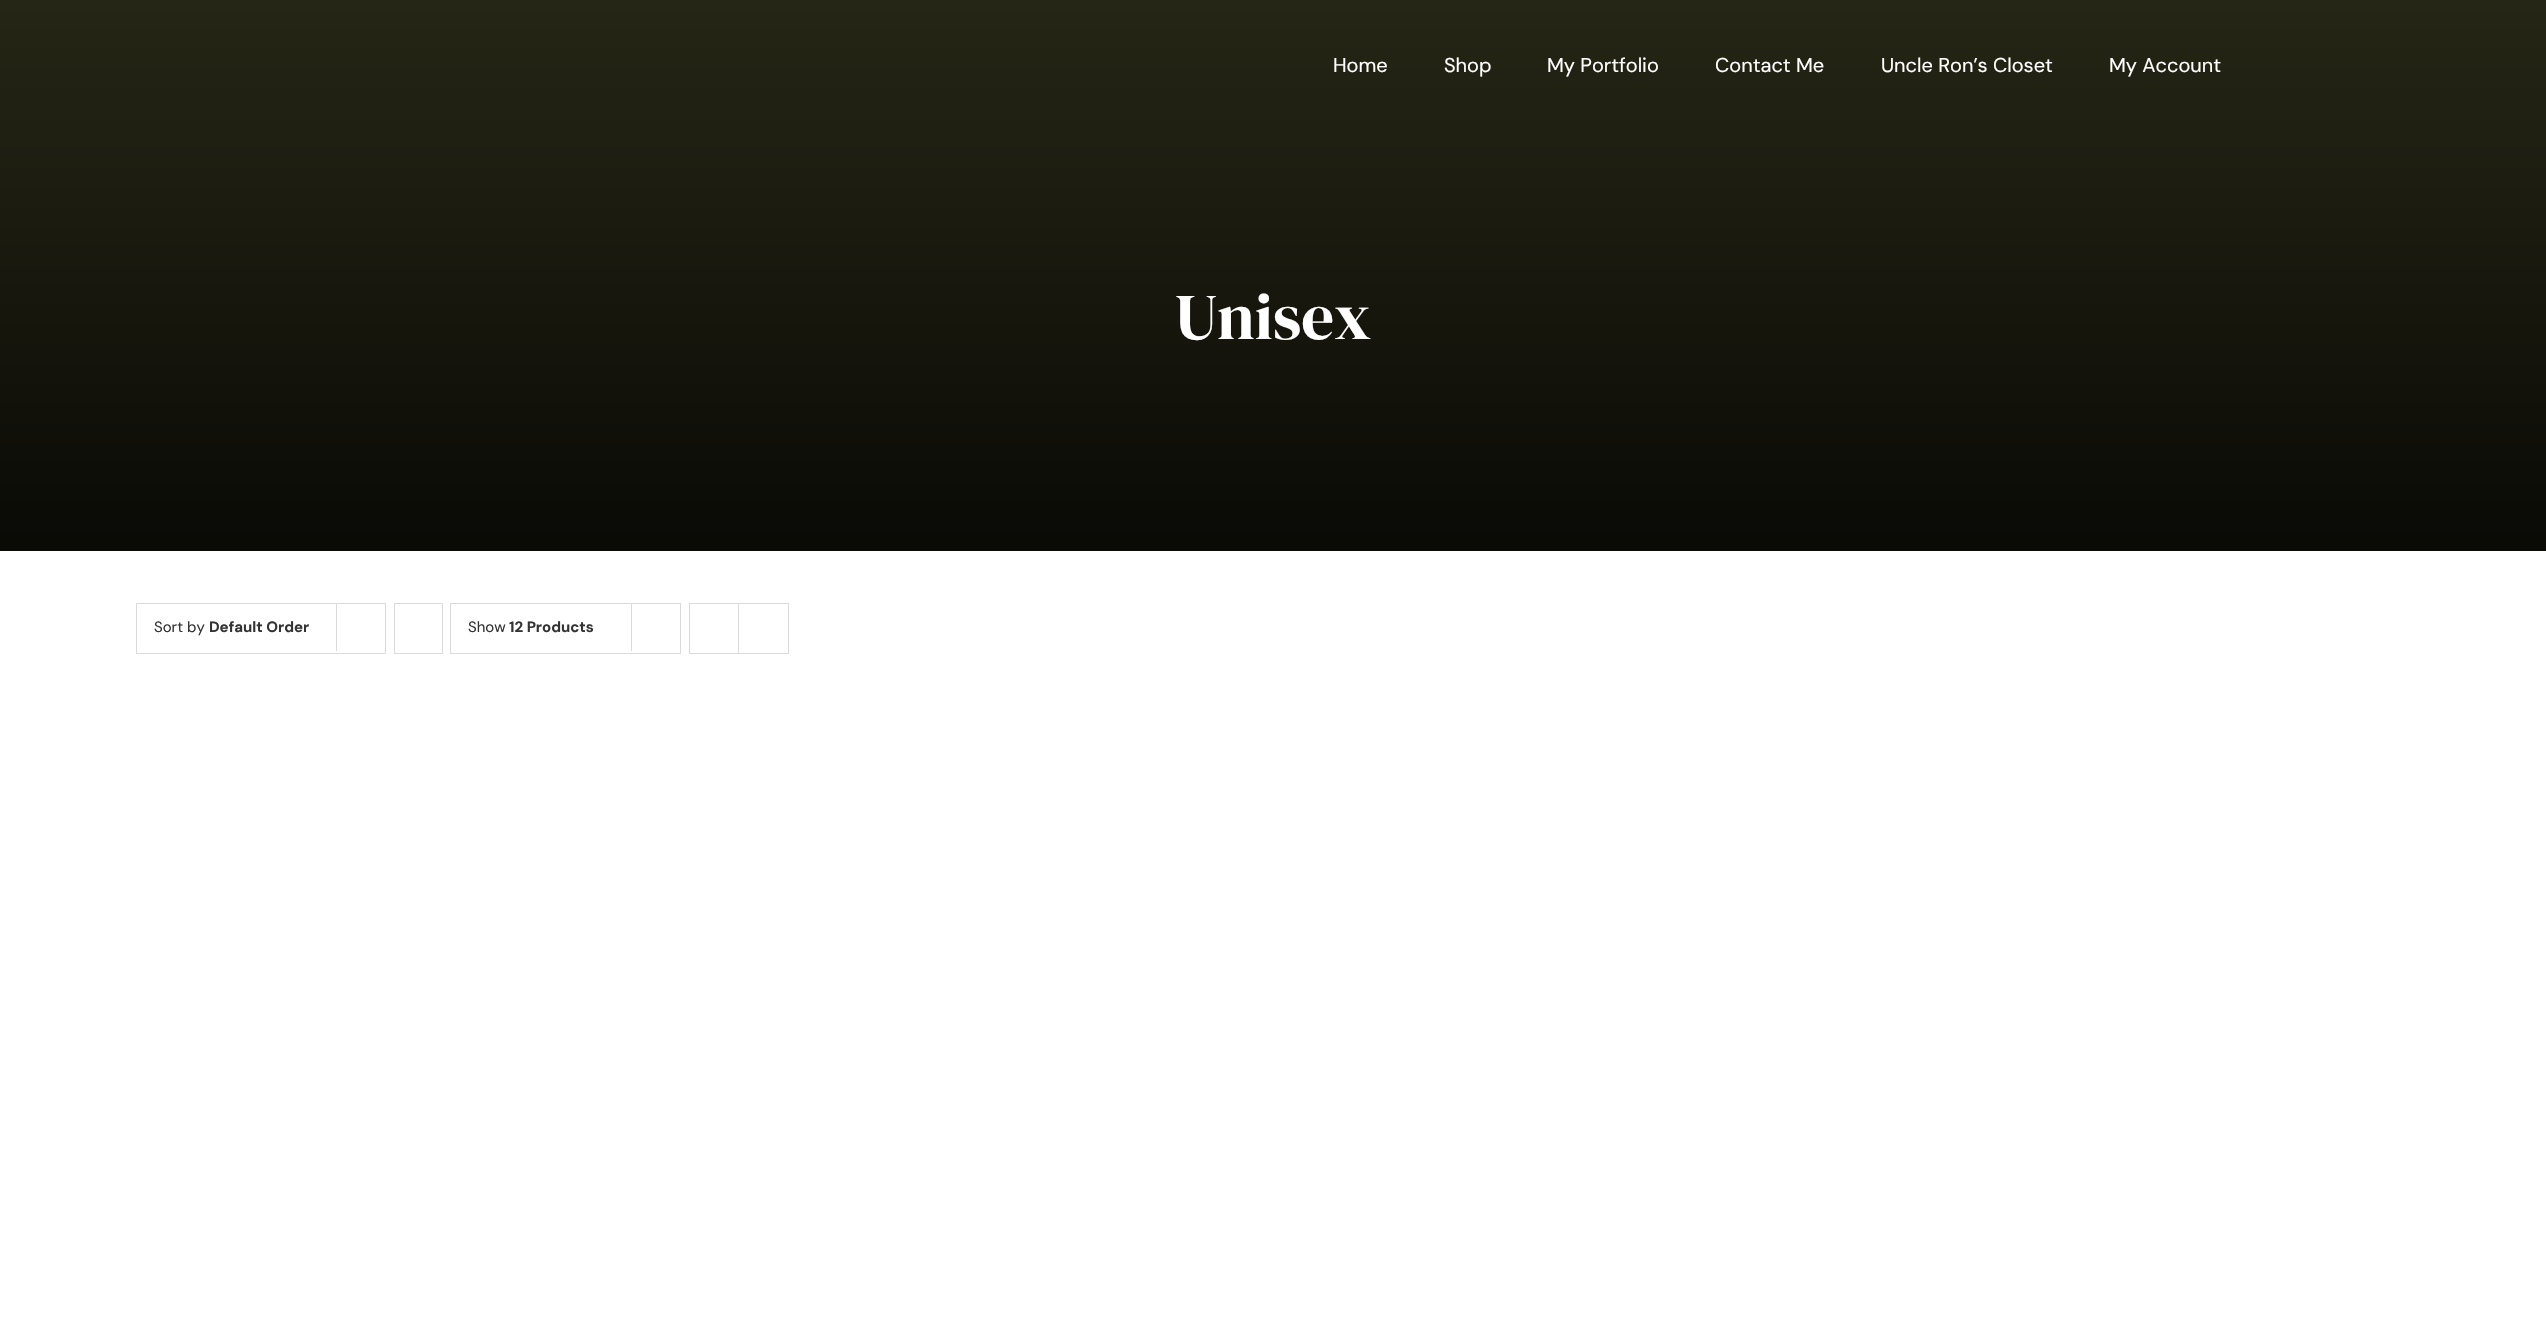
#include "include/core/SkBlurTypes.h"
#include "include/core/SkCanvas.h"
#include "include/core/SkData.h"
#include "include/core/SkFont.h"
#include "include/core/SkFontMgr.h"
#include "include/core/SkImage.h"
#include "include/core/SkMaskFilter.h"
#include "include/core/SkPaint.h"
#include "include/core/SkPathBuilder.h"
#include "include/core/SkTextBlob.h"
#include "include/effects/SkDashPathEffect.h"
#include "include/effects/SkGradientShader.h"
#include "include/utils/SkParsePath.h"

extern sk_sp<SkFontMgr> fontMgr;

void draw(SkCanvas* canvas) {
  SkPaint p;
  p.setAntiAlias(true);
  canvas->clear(SK_ColorWHITE);
  {
    const SkColor colors[] = {SkColorSetRGB(38, 38, 22), SkColorSetRGB(10, 10, 6)};
    const float stops[] = {0, 1};
    const SkPoint ends[] = {{1273, 0}, {1273, 551}};
    p.setShader(SkGradientShader::MakeLinear(ends, colors, stops, 2, SkTileMode::kClamp));
    p.setAlpha(255);
  }
  canvas->drawRect(SkRect::MakeLTRB(0, 0, 2546, 551), p);
  p.setStyle(SkPaint::kStroke_Style);
  p.setStrokeWidth(1);
  p.setShader(nullptr);
  p.setColor(SkColorSetRGB(219, 219, 219));
  canvas->drawRect(SkRect::MakeLTRB(136.5f, 603.5f, 385.5f, 653.5f), p);
  p.setStyle(SkPaint::kFill_Style);
  canvas->drawRect(SkRect::MakeLTRB(336, 603, 337, 651), p);
  p.setStyle(SkPaint::kStroke_Style);
  canvas->drawRect(SkRect::MakeLTRB(394.5f, 603.5f, 442.5f, 653.5f), p);
  canvas->drawRect(SkRect::MakeLTRB(450.5f, 603.5f, 680.5f, 653.5f), p);
  p.setStyle(SkPaint::kFill_Style);
  canvas->drawRect(SkRect::MakeLTRB(631, 603, 632, 651), p);
  p.setStyle(SkPaint::kStroke_Style);
  canvas->drawRect(SkRect::MakeLTRB(689.5f, 603.5f, 788.5f, 653.5f), p);
  p.setStyle(SkPaint::kFill_Style);
  canvas->drawRect(SkRect::MakeLTRB(738, 604, 739, 653), p);
  SkFont font1(fontMgr->matchFamilyStyle("DM Sans", SkFontStyle::Normal()), 20);
  font1.setSubpixel(true);
  p.setColor(SK_ColorWHITE);
  canvas->drawString("Home", 1333, 72, font1, p);
  canvas->drawString("Shop", 1444, 72, font1, p);
  canvas->drawString("My Portfolio", 1547, 72, font1, p);
  canvas->drawString("Contact Me", 1715, 72, font1, p);
  canvas->drawString("Uncle Ron’s Closet", 1881, 72, font1, p);
  canvas->drawString("My Account", 2109, 72, font1, p);
  SkFont font2(fontMgr->matchFamilyStyle("DM Serif Display", SkFontStyle::Normal()), 65);
  font2.setSubpixel(true);
  canvas->drawString("Unisex", 1175, 339, font2, p);
  SkFont font3(fontMgr->matchFamilyStyle("DM Sans", SkFontStyle::Normal()), 15);
  font3.setSubpixel(true);
  p.setColor(SkColorSetRGB(51, 51, 51));
  canvas->drawString("Sort by", 154, 632, font3, p);
  SkFont font4(fontMgr->matchFamilyStyle("DM Sans", SkFontStyle::Bold()), 15);
  font4.setSubpixel(true);
  canvas->drawString("Default Order", 209, 632, font4, p);
  canvas->drawString("Show", 468, 632, font3, p);
  canvas->drawString("12 Products", 509, 632, font4, p);
}
